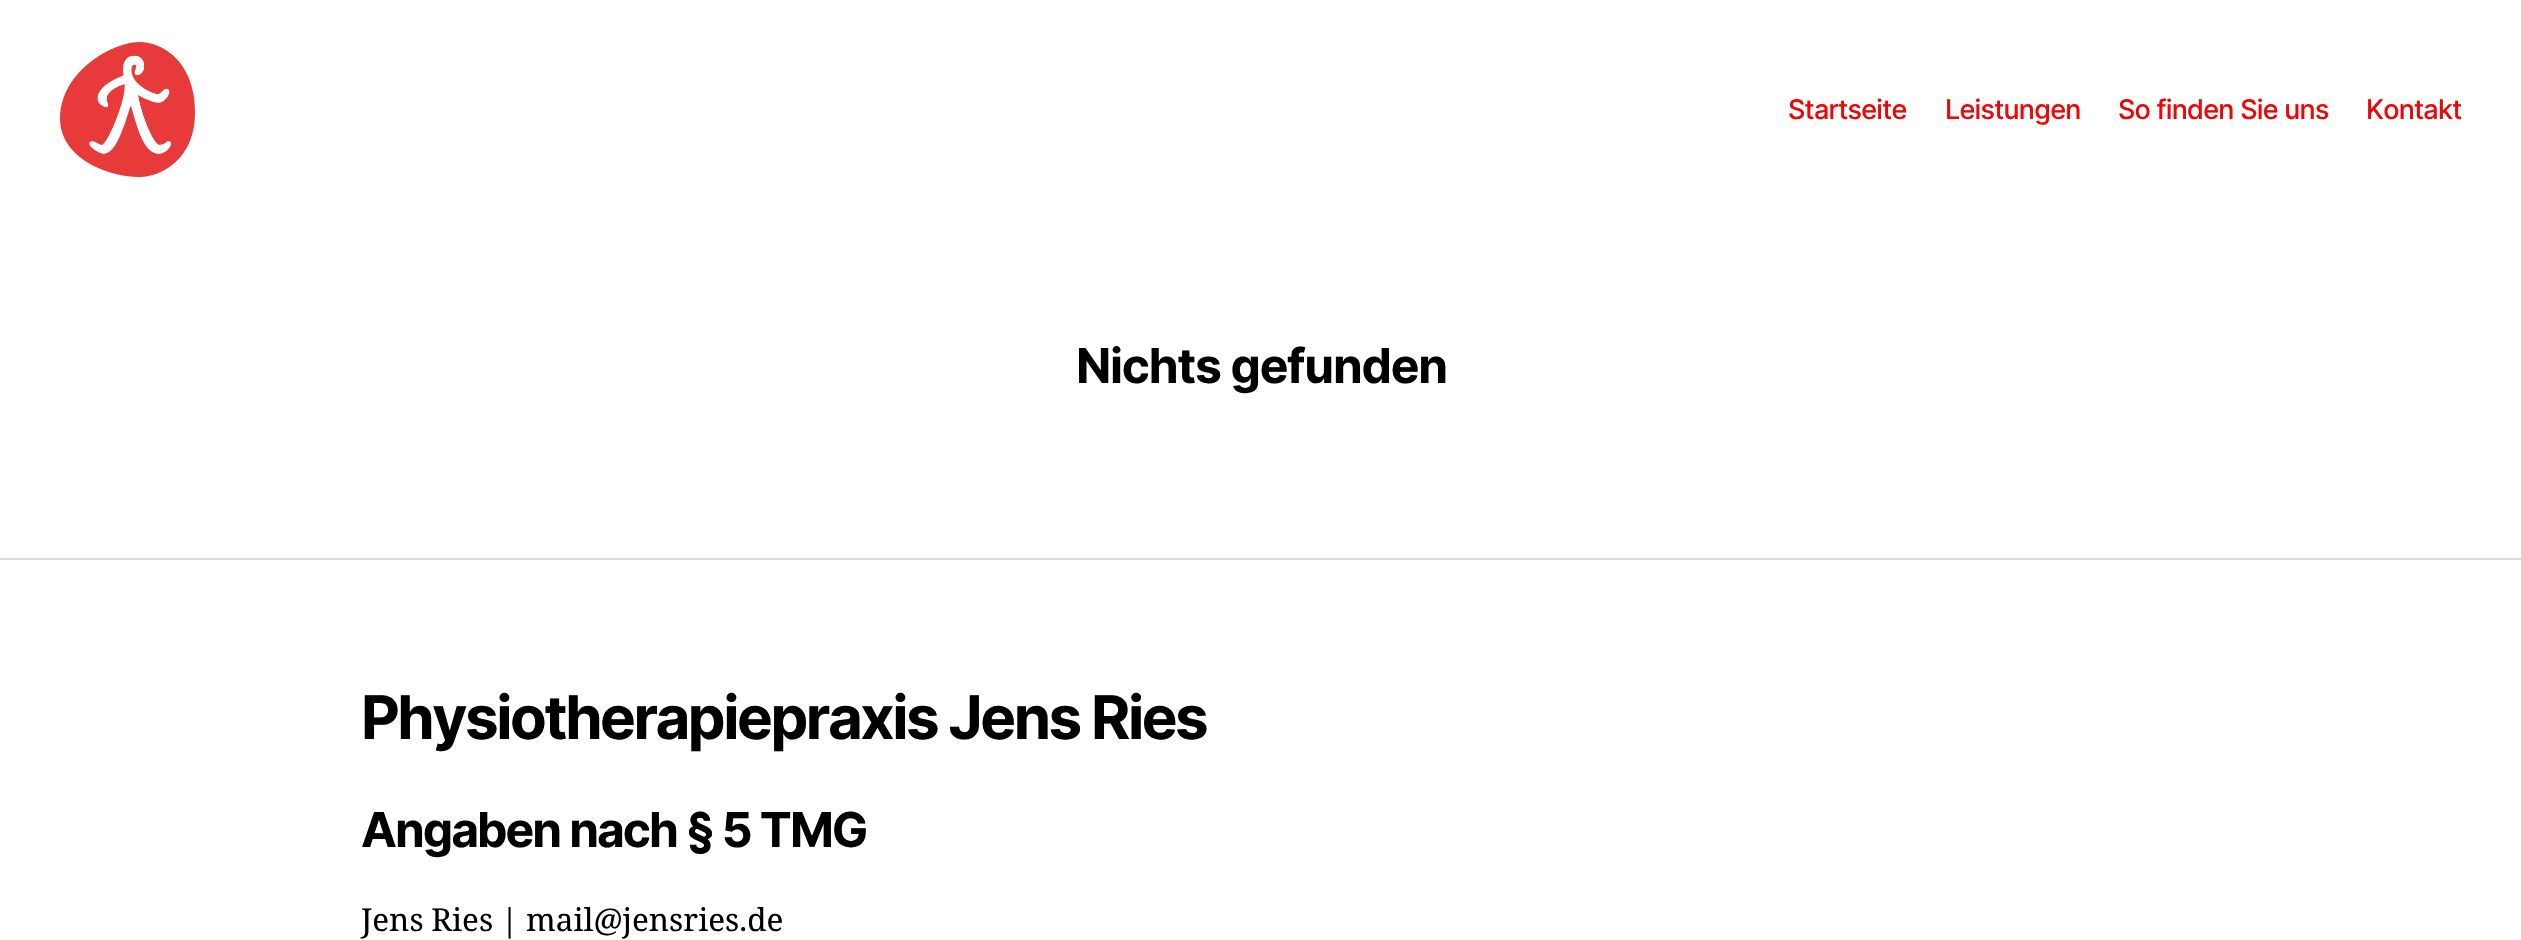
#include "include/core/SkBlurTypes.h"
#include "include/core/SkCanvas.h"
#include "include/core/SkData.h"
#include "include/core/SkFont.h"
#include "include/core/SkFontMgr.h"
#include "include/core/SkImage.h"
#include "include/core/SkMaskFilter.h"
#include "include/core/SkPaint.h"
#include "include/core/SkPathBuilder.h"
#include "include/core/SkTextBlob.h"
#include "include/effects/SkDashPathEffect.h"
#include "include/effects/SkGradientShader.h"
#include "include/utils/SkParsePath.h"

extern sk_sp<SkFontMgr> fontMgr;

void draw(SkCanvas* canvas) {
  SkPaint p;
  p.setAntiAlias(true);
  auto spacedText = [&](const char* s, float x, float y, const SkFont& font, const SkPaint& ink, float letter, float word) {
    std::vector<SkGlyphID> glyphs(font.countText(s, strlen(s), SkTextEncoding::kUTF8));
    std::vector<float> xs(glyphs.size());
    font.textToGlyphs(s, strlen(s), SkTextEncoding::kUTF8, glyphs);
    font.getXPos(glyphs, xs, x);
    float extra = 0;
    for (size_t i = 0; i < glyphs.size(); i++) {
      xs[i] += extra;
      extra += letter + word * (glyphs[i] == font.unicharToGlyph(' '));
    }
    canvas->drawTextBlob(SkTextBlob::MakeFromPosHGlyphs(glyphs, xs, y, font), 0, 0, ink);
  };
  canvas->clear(SK_ColorWHITE);
  canvas->drawImageRect(SkImages::DeferredFromEncodedData(SkData::MakeFromFileName("images/1.png")), SkRect::MakeLTRB(60, 42, 195, 177), SkSamplingOptions());
  p.setColor(SkColorSetRGB(219, 219, 219));
  canvas->drawRect(SkRect::MakeLTRB(0, 558, 2521, 560), p);
  SkFont font1(fontMgr->matchFamilyStyle("Inter", SkFontStyle(500, SkFontStyle::kNormal_Width, SkFontStyle::kUpright_Slant)), 27);
  font1.setSubpixel(true);
  p.setColor(SkColorSetRGB(238, 6, 6));
  spacedText("Startseite", 1788, 119, font1, p, -0.75f, 0);
  spacedText("Leistungen", 1945, 119, font1, p, -0.75f, 0);
  spacedText("So finden Sie uns", 2118, 119, font1, p, -0.75f, 0);
  spacedText("Kontakt", 2366, 119, font1, p, -0.75f, 0);
  SkFont font2(fontMgr->matchFamilyStyle("Inter", SkFontStyle::Bold()), 48);
  font2.setSubpixel(true);
  p.setColor(SK_ColorBLACK);
  spacedText("Nichts gefunden", 1076, 383, font2, p, -1.25f, 0);
  SkFont font3(fontMgr->matchFamilyStyle("Inter", SkFontStyle::Bold()), 60);
  font3.setSubpixel(true);
  spacedText("Physiotherapiepraxis Jens Ries", 361, 739, font3, p, -2.5f, 0);
  spacedText("Angaben nach § 5 TMG", 361, 847, font2, p, -2, 0);
  SkFont font4(fontMgr->matchFamilyStyle("Noto Serif", SkFontStyle::Normal()), 31.5f);
  font4.setSubpixel(true);
  spacedText("Jens Ries | mail@jensries.de", 361, 931, font4, p, 0, -0.5f);
}
